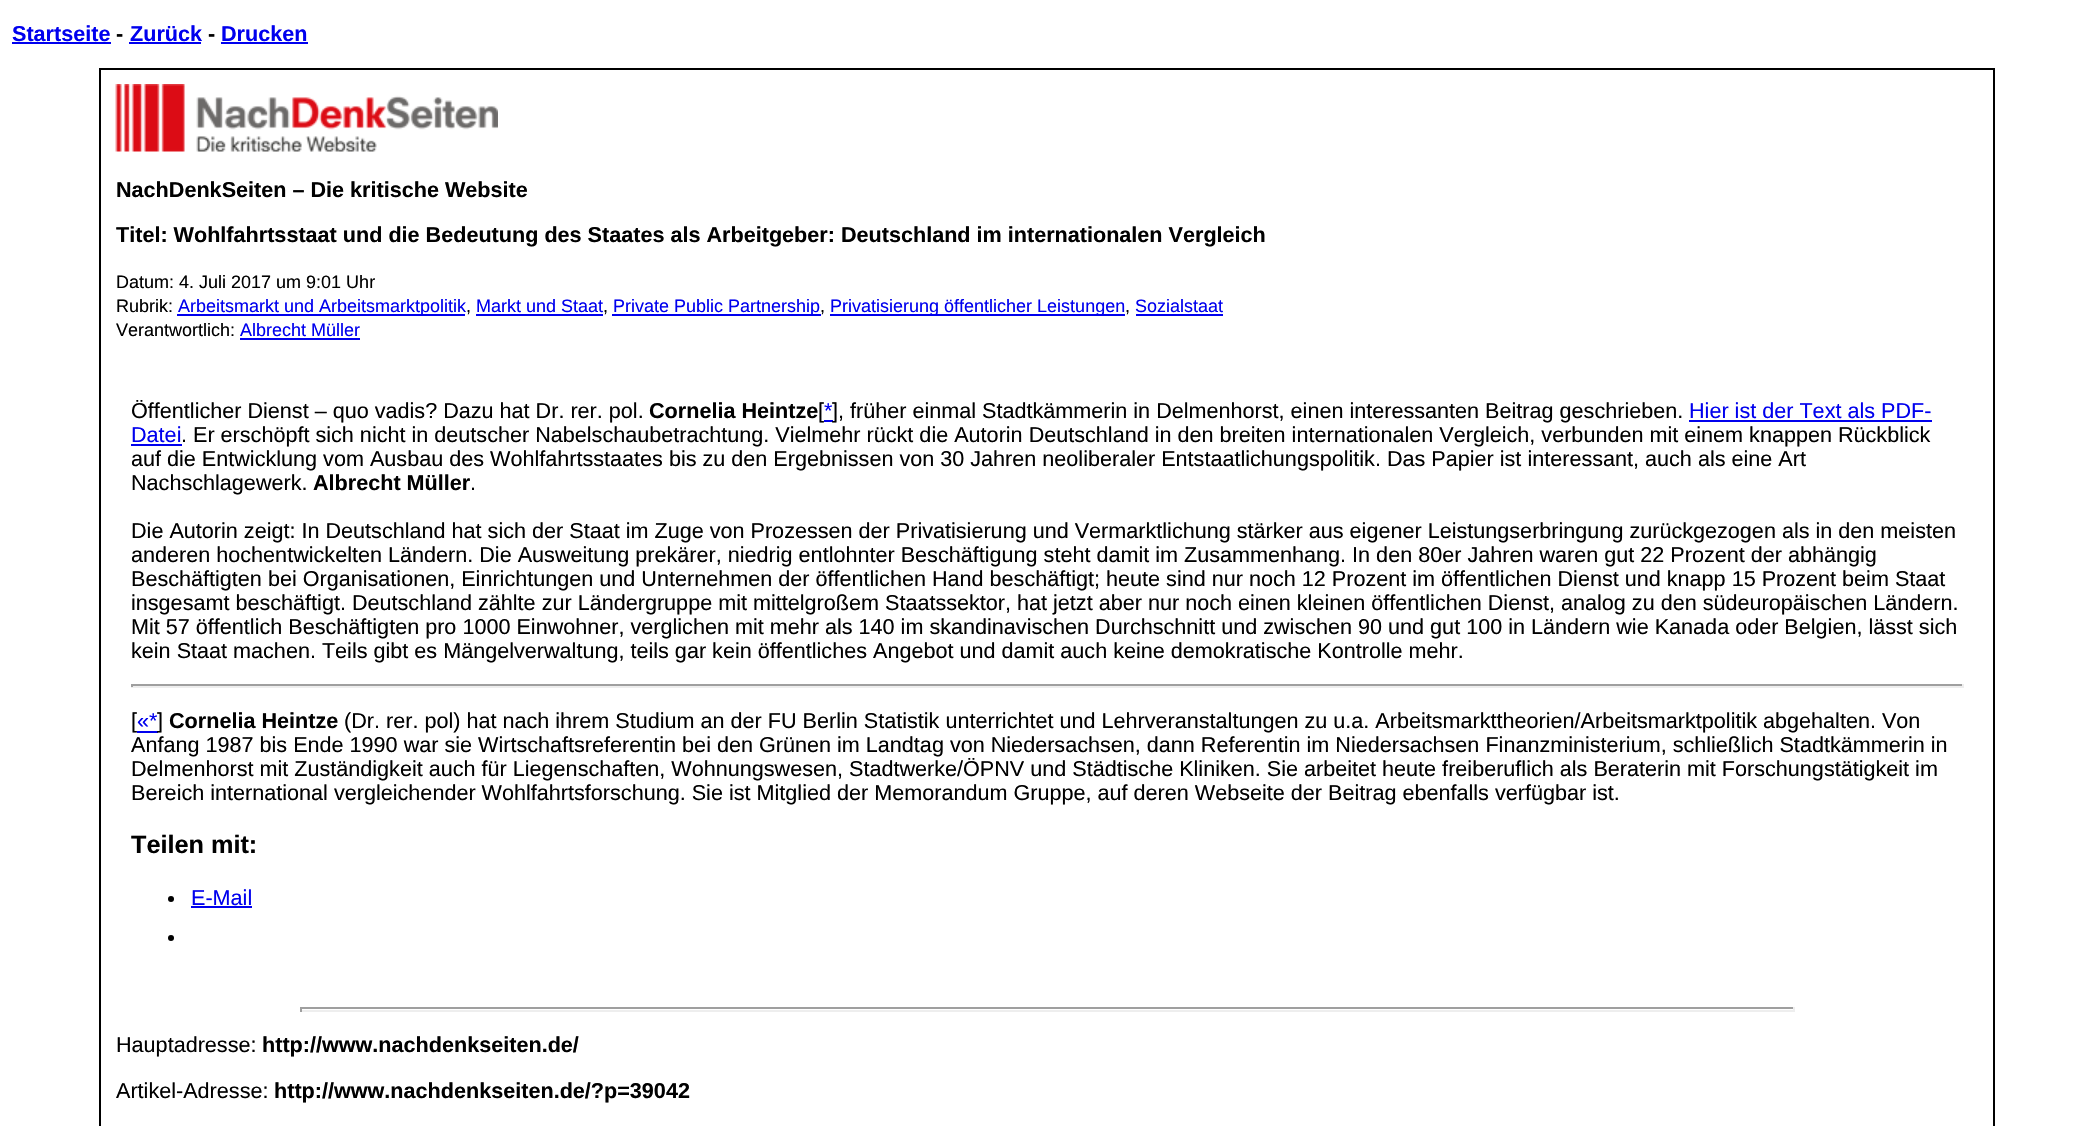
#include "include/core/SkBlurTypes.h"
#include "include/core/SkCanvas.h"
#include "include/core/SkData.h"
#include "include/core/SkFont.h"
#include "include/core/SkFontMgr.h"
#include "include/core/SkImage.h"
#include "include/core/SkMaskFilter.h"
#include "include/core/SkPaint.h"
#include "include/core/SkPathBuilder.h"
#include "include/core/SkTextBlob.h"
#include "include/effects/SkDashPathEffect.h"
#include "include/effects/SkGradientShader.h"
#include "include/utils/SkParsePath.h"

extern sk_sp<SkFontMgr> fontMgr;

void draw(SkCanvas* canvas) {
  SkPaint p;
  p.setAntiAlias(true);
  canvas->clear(SK_ColorWHITE);
  p.setColor(SkColorSetRGB(0, 0, 238));
  canvas->drawRect(SkRect::MakeLTRB(12, 42, 111, 44), p);
  canvas->drawRect(SkRect::MakeLTRB(129, 42, 201, 44), p);
  canvas->drawRect(SkRect::MakeLTRB(221, 42, 308, 44), p);
  p.setStyle(SkPaint::kStroke_Style);
  p.setStrokeWidth(2);
  p.setColor(SK_ColorBLACK);
  canvas->drawRect(SkRect::MakeLTRB(100, 69, 1994, 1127), p);
  canvas->drawImageRect(SkImages::DeferredFromEncodedData(SkData::MakeFromFileName("images/1.png")), SkRect::MakeLTRB(115, 84, 498, 152), SkSamplingOptions());
  p.setStyle(SkPaint::kFill_Style);
  p.setColor(SkColorSetRGB(0, 0, 238));
  canvas->drawRect(SkRect::MakeLTRB(177, 314, 465, 316), p);
  canvas->drawRect(SkRect::MakeLTRB(476, 314, 603, 316), p);
  canvas->drawRect(SkRect::MakeLTRB(612, 314, 821, 316), p);
  canvas->drawRect(SkRect::MakeLTRB(830, 314, 1125, 316), p);
  canvas->drawRect(SkRect::MakeLTRB(1136, 314, 1223, 316), p);
  canvas->drawRect(SkRect::MakeLTRB(240, 338, 360, 340), p);
  canvas->drawRect(SkRect::MakeLTRB(824, 420, 833, 422), p);
  canvas->drawRect(SkRect::MakeLTRB(1689, 420, 1932, 422), p);
  canvas->drawRect(SkRect::MakeLTRB(131, 444, 182, 446), p);
  p.setColor(SkColorSetRGB(159, 159, 159));
  canvas->drawRect(SkRect::MakeLTRB(131, 684, 1964, 686), p);
  p.setColor(SkColorSetRGB(238, 238, 238));
  canvas->drawRect(SkRect::MakeLTRB(1962, 684, 1964, 687), p);
  canvas->drawRect(SkRect::MakeLTRB(131, 686, 1964, 688), p);
  p.setColor(SkColorSetRGB(159, 159, 159));
  canvas->drawRect(SkRect::MakeLTRB(131, 684, 133, 687), p);
  p.setColor(SkColorSetRGB(0, 0, 238));
  canvas->drawRect(SkRect::MakeLTRB(137, 731, 158, 733), p);
  p.setColor(SK_ColorBLACK);
  canvas->drawCircle(171, 899, 3, p);
  p.setColor(SkColorSetRGB(0, 0, 238));
  canvas->drawRect(SkRect::MakeLTRB(191, 906, 252, 908), p);
  p.setColor(SK_ColorBLACK);
  canvas->drawCircle(171, 938, 3, p);
  p.setColor(SkColorSetRGB(159, 159, 159));
  canvas->drawRect(SkRect::MakeLTRB(300, 1007, 1794, 1009), p);
  p.setColor(SkColorSetRGB(238, 238, 238));
  canvas->drawRect(SkRect::MakeLTRB(1793, 1007, 1795, 1012), p);
  canvas->drawRect(SkRect::MakeLTRB(300, 1010, 1794, 1012), p);
  p.setColor(SkColorSetRGB(159, 159, 159));
  canvas->drawRect(SkRect::MakeLTRB(300, 1007, 302, 1012), p);
  SkFont font1(fontMgr->matchFamilyStyle("Liberation Sans", SkFontStyle::Bold()), 21.6f);
  font1.setSubpixel(true);
  p.setColor(SkColorSetRGB(0, 0, 238));
  canvas->drawString("Startseite", 12, 41, font1, p);
  p.setColor(SK_ColorBLACK);
  canvas->drawString("-", 116, 41, font1, p);
  p.setColor(SkColorSetRGB(0, 0, 238));
  canvas->drawString("Zurück", 130, 41, font1, p);
  p.setColor(SK_ColorBLACK);
  canvas->drawString("-", 208, 41, font1, p);
  p.setColor(SkColorSetRGB(0, 0, 238));
  canvas->drawString("Drucken", 221, 41, font1, p);
  p.setColor(SK_ColorBLACK);
  canvas->drawString("NachDenkSeiten – Die kritische Website", 116, 197, font1, p);
  canvas->drawString("Titel: Wohlfahrtsstaat und die Bedeutung des Staates als Arbeitgeber: Deutschland im internationalen Vergleich", 116, 242, font1, p);
  SkFont font2(fontMgr->matchFamilyStyle("Liberation Sans", SkFontStyle::Normal()), 18);
  font2.setSubpixel(true);
  canvas->drawString("Datum: 4. Juli 2017 um 9:01 Uhr", 116, 288, font2, p);
  canvas->drawString("Rubrik:", 116, 312, font2, p);
  p.setColor(SkColorSetRGB(0, 0, 238));
  canvas->drawString("Arbeitsmarkt und Arbeitsmarktpolitik", 178, 312, font2, p);
  p.setColor(SK_ColorBLACK);
  canvas->drawString(",", 466, 312, font2, p);
  p.setColor(SkColorSetRGB(0, 0, 238));
  canvas->drawString("Markt und Staat", 476, 312, font2, p);
  p.setColor(SK_ColorBLACK);
  canvas->drawString(",", 603, 312, font2, p);
  p.setColor(SkColorSetRGB(0, 0, 238));
  canvas->drawString("Private Public Partnership", 613, 312, font2, p);
  p.setColor(SK_ColorBLACK);
  canvas->drawString(",", 820, 312, font2, p);
  p.setColor(SkColorSetRGB(0, 0, 238));
  canvas->drawString("Privatisierung öffentlicher Leistungen", 830, 312, font2, p);
  p.setColor(SK_ColorBLACK);
  canvas->drawString(",", 1125, 312, font2, p);
  p.setColor(SkColorSetRGB(0, 0, 238));
  canvas->drawString("Sozialstaat", 1135, 312, font2, p);
  p.setColor(SK_ColorBLACK);
  canvas->drawString("Verantwortlich:", 116, 336, font2, p);
  p.setColor(SkColorSetRGB(0, 0, 238));
  canvas->drawString("Albrecht Müller", 240, 336, font2, p);
  SkFont font3(fontMgr->matchFamilyStyle("Liberation Sans", SkFontStyle::Normal()), 21.6f);
  font3.setSubpixel(true);
  p.setColor(SK_ColorBLACK);
  canvas->drawString("Öffentlicher Dienst – quo vadis? Dazu hat Dr. rer. pol.", 131, 418, font3, p);
  canvas->drawString("Cornelia Heintze", 649, 418, font1, p);
  canvas->drawString("[", 818, 418, font3, p);
  p.setColor(SkColorSetRGB(0, 0, 238));
  canvas->drawString("*", 824, 418, font3, p);
  p.setColor(SK_ColorBLACK);
  canvas->drawString("], früher einmal Stadtkämmerin in Delmenhorst, einen interessanten Beitrag geschrieben.", 832, 418, font3, p);
  p.setColor(SkColorSetRGB(0, 0, 238));
  canvas->drawString("Hier ist der Text als PDF-", 1689, 418, font3, p);
  canvas->drawString("Datei", 131, 442, font3, p);
  p.setColor(SK_ColorBLACK);
  canvas->drawString(". Er erschöpft sich nicht in deutscher Nabelschaubetrachtung. Vielmehr rückt die Autorin Deutschland in den breiten internationalen Vergleich, verbunden mit einem knappen Rückblick", 181, 442, font3, p);
  canvas->drawString("auf die Entwicklung vom Ausbau des Wohlfahrtsstaates bis zu den Ergebnissen von 30 Jahren neoliberaler Entstaatlichungspolitik. Das Papier ist interessant, auch als eine Art", 131, 466, font3, p);
  canvas->drawString("Nachschlagewerk.", 131, 490, font3, p);
  canvas->drawString("Albrecht Müller", 313, 490, font1, p);
  canvas->drawString(".", 470, 490, font3, p);
  canvas->drawString("Die Autorin zeigt: In Deutschland hat sich der Staat im Zuge von Prozessen der Privatisierung und Vermarktlichung stärker aus eigener Leistungserbringung zurückgezogen als in den meisten", 131, 538, font3, p);
  canvas->drawString("anderen hochentwickelten Ländern. Die Ausweitung prekärer, niedrig entlohnter Beschäftigung steht damit im Zusammenhang. In den 80er Jahren waren gut 22 Prozent der abhängig", 131, 562, font3, p);
  canvas->drawString("Beschäftigten bei Organisationen, Einrichtungen und Unternehmen der öffentlichen Hand beschäftigt; heute sind nur noch 12 Prozent im öffentlichen Dienst und knapp 15 Prozent beim Staat", 131, 586, font3, p);
  canvas->drawString("insgesamt beschäftigt. Deutschland zählte zur Ländergruppe mit mittelgroßem Staatssektor, hat jetzt aber nur noch einen kleinen öffentlichen Dienst, analog zu den südeuropäischen Ländern.", 131, 610, font3, p);
  canvas->drawString("Mit 57 öffentlich Beschäftigten pro 1000 Einwohner, verglichen mit mehr als 140 im skandinavischen Durchschnitt und zwischen 90 und gut 100 in Ländern wie Kanada oder Belgien, lässt sich", 131, 634, font3, p);
  canvas->drawString("kein Staat machen. Teils gibt es Mängelverwaltung, teils gar kein öffentliches Angebot und damit auch keine demokratische Kontrolle mehr.", 131, 658, font3, p);
  canvas->drawString("[", 131, 728, font3, p);
  p.setColor(SkColorSetRGB(0, 0, 238));
  canvas->drawString("«*", 137, 728, font3, p);
  p.setColor(SK_ColorBLACK);
  canvas->drawString("]", 157, 728, font3, p);
  canvas->drawString("Cornelia Heintze", 169, 728, font1, p);
  canvas->drawString("(Dr. rer. pol) hat nach ihrem Studium an der FU Berlin Statistik unterrichtet und Lehrveranstaltungen zu u.a. Arbeitsmarkttheorien/Arbeitsmarktpolitik abgehalten. Von", 344, 728, font3, p);
  canvas->drawString("Anfang 1987 bis Ende 1990 war sie Wirtschaftsreferentin bei den Grünen im Landtag von Niedersachsen, dann Referentin im Niedersachsen Finanzministerium, schließlich Stadtkämmerin in", 131, 752, font3, p);
  canvas->drawString("Delmenhorst mit Zuständigkeit auch für Liegenschaften, Wohnungswesen, Stadtwerke/ÖPNV und Städtische Kliniken. Sie arbeitet heute freiberuflich als Beraterin mit Forschungstätigkeit im", 131, 776, font3, p);
  canvas->drawString("Bereich international vergleichender Wohlfahrtsforschung. Sie ist Mitglied der Memorandum Gruppe, auf deren Webseite der Beitrag ebenfalls verfügbar ist.", 131, 800, font3, p);
  SkFont font4(fontMgr->matchFamilyStyle("Liberation Sans", SkFontStyle::Bold()), 25.25f);
  font4.setSubpixel(true);
  canvas->drawString("Teilen mit:", 131, 853, font4, p);
  p.setColor(SkColorSetRGB(0, 0, 238));
  canvas->drawString("E-Mail", 191, 905, font3, p);
  p.setColor(SK_ColorBLACK);
  canvas->drawString("Hauptadresse:", 116, 1052, font3, p);
  canvas->drawString("http://www.nachdenkseiten.de/", 262, 1052, font1, p);
  canvas->drawString("Artikel-Adresse:", 116, 1098, font3, p);
  canvas->drawString("http://www.nachdenkseiten.de/?p=39042", 274, 1098, font1, p);
}
